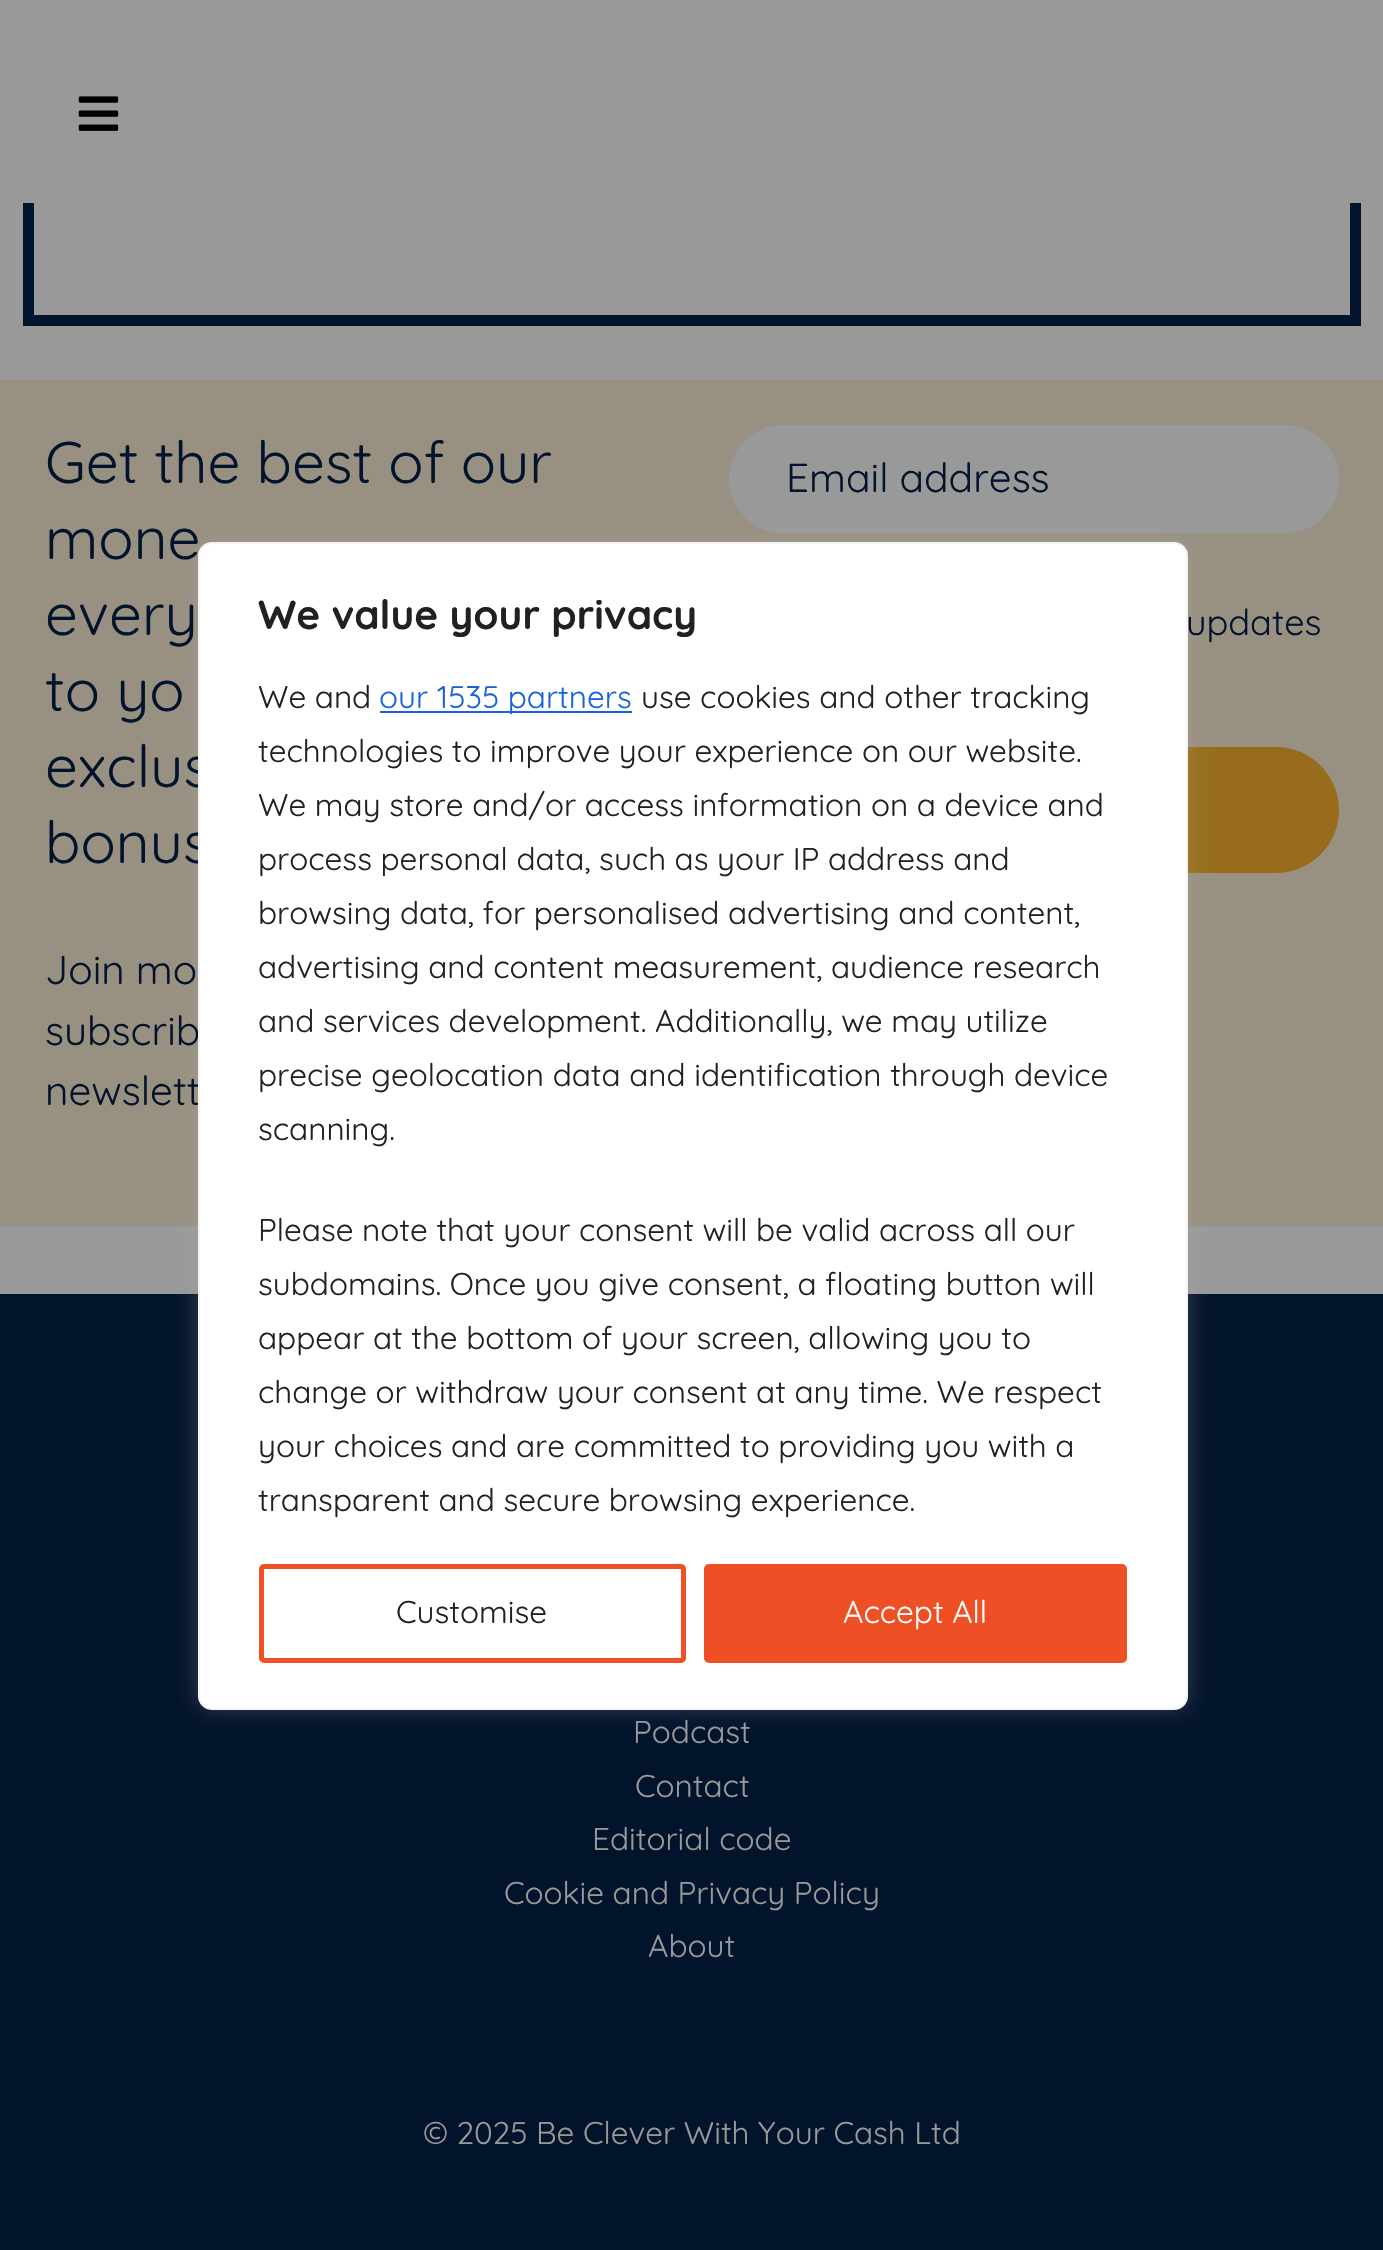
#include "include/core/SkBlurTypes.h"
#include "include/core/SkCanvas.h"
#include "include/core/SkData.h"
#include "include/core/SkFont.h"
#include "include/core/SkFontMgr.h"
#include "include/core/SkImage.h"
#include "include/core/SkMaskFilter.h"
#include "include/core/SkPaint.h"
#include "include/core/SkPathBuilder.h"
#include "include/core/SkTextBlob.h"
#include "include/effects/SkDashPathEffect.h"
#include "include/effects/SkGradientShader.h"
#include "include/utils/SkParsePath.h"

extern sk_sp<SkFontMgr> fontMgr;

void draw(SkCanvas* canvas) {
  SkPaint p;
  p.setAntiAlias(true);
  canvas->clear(SkColorSetRGB(153, 153, 153));
  p.setStyle(SkPaint::kStroke_Style);
  p.setStrokeWidth(11);
  p.setColor(SkColorSetRGB(2, 19, 44));
  canvas->drawRect(SkRect::MakeLTRB(28.5f, -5.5f, 1355.5f, 320.5f), p);
  p.setStyle(SkPaint::kFill_Style);
  p.setColor(SkColorSetRGB(153, 153, 153));
  canvas->drawRect(SkRect::MakeLTRB(23, 0, 1361, 203), p);
  canvas->drawImageRect(SkImages::DeferredFromEncodedData(SkData::MakeFromFileName("images/1.png")), SkRect::MakeLTRB(78, 96, 119, 131), SkSamplingOptions());
  p.setColor(SkColorSetRGB(152, 144, 129));
  canvas->drawRect(SkRect::MakeLTRB(0, 380, 1383, 1226), p);
  p.setColor(SkColorSetRGB(153, 153, 153));
  canvas->drawRoundRect(SkRect::MakeLTRB(730, 426, 1338, 532), 53, 53, p);
  p.setStyle(SkPaint::kStroke_Style);
  p.setStrokeWidth(2);
  canvas->drawRoundRect(SkRect::MakeLTRB(730, 426, 1338, 532), 53, 53, p);
  p.setStyle(SkPaint::kFill_Style);
  p.setColor(SkColorSetRGB(151, 109, 29));
  canvas->drawRoundRect(SkRect::MakeLTRB(729, 747, 1339, 873), 63, 63, p);
  p.setColor(SkColorSetRGB(2, 19, 44));
  canvas->drawRect(SkRect::MakeLTRB(0, 1294, 1383, 2250), p);
  p.setColor(SkColorSetARGB(77, 172, 171, 171));
  p.setMaskFilter(SkMaskFilter::MakeBlur(kNormal_SkBlurStyle, 11));
  canvas->drawRoundRect(SkRect::MakeLTRB(198, 540, 1188, 1708), 14, 14, p);
  p.setMaskFilter(nullptr);
  SkFont font1(fontMgr->matchFamilyStyle("Quicksand", SkFontStyle::Normal()), 58.5f);
  font1.setSubpixel(true);
  p.setColor(SkColorSetRGB(2, 19, 44));
  canvas->drawString("Get the best of our", 45, 483, font1, p);
  canvas->drawString("mone", 45, 559, font1, p);
  canvas->drawString("every", 45, 635, font1, p);
  canvas->drawString("to yo", 45, 711, font1, p);
  canvas->drawString("exclus", 45, 787, font1, p);
  canvas->drawString("bonus", 45, 863, font1, p);
  SkFont font2(fontMgr->matchFamilyStyle("Quicksand", SkFontStyle::Normal()), 40.5f);
  font2.setSubpixel(true);
  canvas->drawString("Join mo", 45, 984, font2, p);
  canvas->drawString("subscrib", 45, 1045, font2, p);
  canvas->drawString("newslett", 45, 1105, font2, p);
  canvas->drawString("Email address", 786, 492, font2, p);
  SkFont font3(fontMgr->matchFamilyStyle("Quicksand", SkFontStyle::Normal()), 36);
  font3.setSubpixel(true);
  canvas->drawString("updates", 1186, 635, font3, p);
  SkFont font4(fontMgr->matchFamilyStyle("Quicksand", SkFontStyle::Normal()), 31.5f);
  font4.setSubpixel(true);
  p.setColor(SkColorSetRGB(153, 153, 153));
  canvas->drawString("Podcast", 633, 1743, font4, p);
  canvas->drawString("Contact", 635, 1797, font4, p);
  canvas->drawString("Editorial code", 592, 1850, font4, p);
  canvas->drawString("Cookie and Privacy Policy", 504, 1904, font4, p);
  canvas->drawString("About", 648, 1957, font4, p);
  canvas->drawString("© 2025 Be Clever With Your Cash Ltd", 423, 2144, font4, p);
  p.setColor(SK_ColorWHITE);
  canvas->drawRoundRect(SkRect::MakeLTRB(199, 543, 1187, 1709), 13, 13, p);
  p.setStyle(SkPaint::kStroke_Style);
  p.setColor(SkColorSetRGB(244, 244, 244));
  canvas->drawRoundRect(SkRect::MakeLTRB(199, 543, 1187, 1709), 13, 13, p);
  SkFont font5(fontMgr->matchFamilyStyle("Quicksand", SkFontStyle::Bold()), 40.5f);
  font5.setSubpixel(true);
  p.setStyle(SkPaint::kFill_Style);
  p.setColor(SkColorSetRGB(33, 33, 33));
  canvas->drawString("We value your privacy", 258, 629, font5, p);
  canvas->drawString("We and", 258, 708, font4, p);
  p.setColor(SkColorSetRGB(24, 99, 220));
  canvas->drawRect(SkRect::MakeLTRB(380, 711, 632, 713), p);
  canvas->drawString("our 1535 partners", 379, 708, font4, p);
  p.setColor(SkColorSetRGB(33, 33, 33));
  canvas->drawString("use cookies and other tracking", 641, 708, font4, p);
  canvas->drawString("technologies to improve your experience on our website.", 258, 762, font4, p);
  canvas->drawString("We may store and/or access information on a device and", 258, 816, font4, p);
  canvas->drawString("process personal data, such as your IP address and", 258, 870, font4, p);
  canvas->drawString("browsing data, for personalised advertising and content,", 258, 924, font4, p);
  canvas->drawString("advertising and content measurement, audience research", 258, 978, font4, p);
  canvas->drawString("and services development. Additionally, we may utilize", 258, 1032, font4, p);
  canvas->drawString("precise geolocation data and identification through device", 258, 1086, font4, p);
  canvas->drawString("scanning.", 258, 1140, font4, p);
  canvas->drawString("Please note that your consent will be valid across all our", 258, 1241, font4, p);
  canvas->drawString("subdomains. Once you give consent, a floating button will", 258, 1295, font4, p);
  canvas->drawString("appear at the bottom of your screen, allowing you to", 258, 1349, font4, p);
  canvas->drawString("change or withdraw your consent at any time. We respect", 258, 1403, font4, p);
  canvas->drawString("your choices and are committed to providing you with a", 258, 1457, font4, p);
  canvas->drawString("transparent and secure browsing experience.", 258, 1511, font4, p);
  p.setStyle(SkPaint::kStroke_Style);
  p.setStrokeWidth(5);
  p.setColor(SkColorSetRGB(239, 79, 36));
  canvas->drawRoundRect(SkRect::MakeLTRB(261.5f, 1566.5f, 683.5f, 1660.5f), 2.5f, 2.5f, p);
  p.setStyle(SkPaint::kFill_Style);
  p.setColor(SkColorSetRGB(33, 33, 33));
  canvas->drawString("Customise", 396, 1623, font4, p);
  p.setColor(SkColorSetRGB(239, 79, 36));
  canvas->drawRoundRect(SkRect::MakeLTRB(706.5f, 1566.5f, 1124.5f, 1660.5f), 2.5f, 2.5f, p);
  p.setStyle(SkPaint::kStroke_Style);
  canvas->drawRoundRect(SkRect::MakeLTRB(706.5f, 1566.5f, 1124.5f, 1660.5f), 2.5f, 2.5f, p);
  p.setStyle(SkPaint::kFill_Style);
  p.setColor(SK_ColorWHITE);
  canvas->drawString("Accept All", 843, 1623, font4, p);
}
